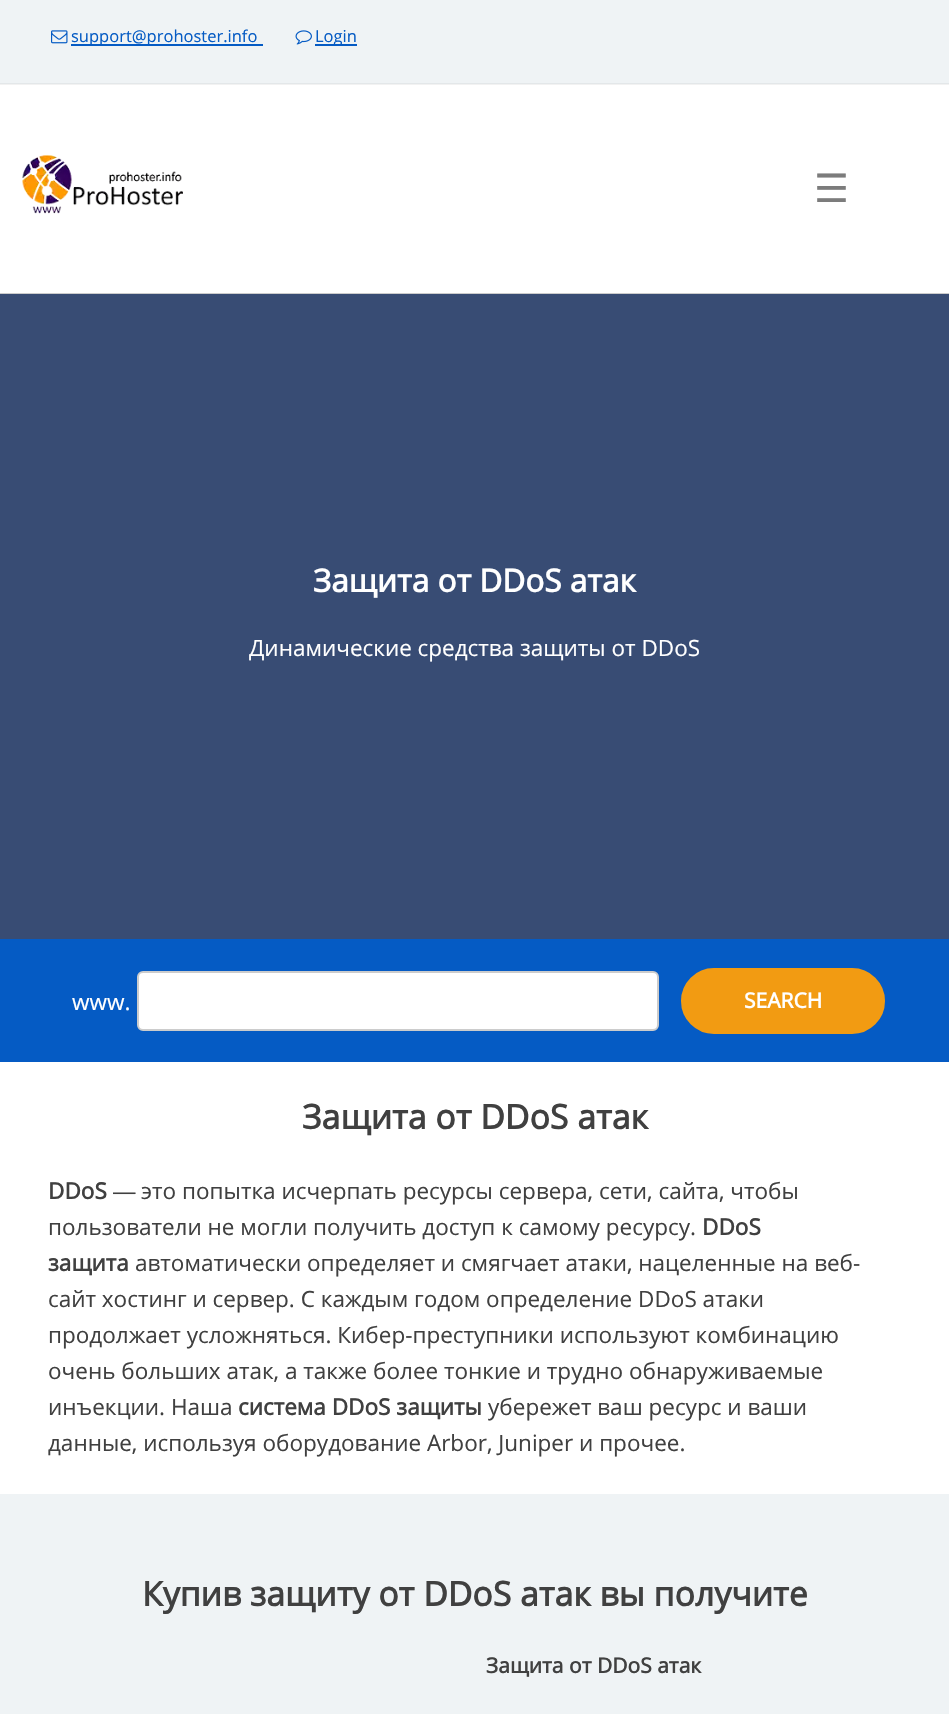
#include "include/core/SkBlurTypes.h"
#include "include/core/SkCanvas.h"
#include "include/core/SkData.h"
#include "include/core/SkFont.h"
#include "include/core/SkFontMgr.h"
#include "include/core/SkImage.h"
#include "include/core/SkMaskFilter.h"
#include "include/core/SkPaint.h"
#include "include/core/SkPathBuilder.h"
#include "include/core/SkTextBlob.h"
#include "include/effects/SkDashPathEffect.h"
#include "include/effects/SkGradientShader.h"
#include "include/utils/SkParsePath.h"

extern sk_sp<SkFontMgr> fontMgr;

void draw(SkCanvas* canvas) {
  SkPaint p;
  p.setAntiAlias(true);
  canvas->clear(SK_ColorWHITE);
  p.setColor(SkColorSetRGB(242, 242, 242));
  canvas->drawRect(SkRect::MakeLTRB(0, 84, 949, 85), p);
  p.setColor(SkColorSetRGB(239, 243, 245));
  canvas->drawRect(SkRect::MakeLTRB(0, 0, 949, 83), p);
  p.setColor(SkColorSetRGB(227, 231, 233));
  canvas->drawRect(SkRect::MakeLTRB(0, 83, 949, 84), p);
  canvas->drawImageRect(SkImages::DeferredFromEncodedData(SkData::MakeFromFileName("images/1.png")), SkRect::MakeLTRB(51, 30, 68, 44), SkSamplingOptions());
  p.setColor(SkColorSetRGB(5, 91, 196));
  canvas->drawRect(SkRect::MakeLTRB(71, 44, 263, 46), p);
  canvas->drawImageRect(SkImages::DeferredFromEncodedData(SkData::MakeFromFileName("images/2.png")), SkRect::MakeLTRB(295, 30, 312, 45), SkSamplingOptions());
  canvas->drawRect(SkRect::MakeLTRB(315, 44, 357, 46), p);
  p.setColor(SkColorSetRGB(204, 204, 204));
  canvas->drawRect(SkRect::MakeLTRB(0, 293, 949, 294), p);
  canvas->drawImageRect(SkImages::DeferredFromEncodedData(SkData::MakeFromFileName("images/3.png")), SkRect::MakeLTRB(22, 154, 183, 214), SkSamplingOptions());
  p.setColor(SkColorSetRGB(56, 76, 116));
  canvas->drawRect(SkRect::MakeLTRB(0, 294, 949, 939), p);
  p.setColor(SkColorSetRGB(5, 91, 196));
  canvas->drawRect(SkRect::MakeLTRB(0, 939, 949, 1062), p);
  p.setColor(SK_ColorWHITE);
  canvas->drawRoundRect(SkRect::MakeLTRB(138, 972, 658, 1030), 5, 5, p);
  p.setStyle(SkPaint::kStroke_Style);
  p.setStrokeWidth(2);
  p.setColor(SkColorSetRGB(204, 204, 204));
  canvas->drawRoundRect(SkRect::MakeLTRB(138, 972, 658, 1030), 5, 5, p);
  p.setStyle(SkPaint::kFill_Style);
  p.setColor(SkColorSetRGB(242, 155, 18));
  canvas->drawRoundRect(SkRect::MakeLTRB(682.5f, 969.5f, 883.5f, 1032.5f), 31.5f, 31.5f, p);
  p.setStyle(SkPaint::kStroke_Style);
  p.setStrokeWidth(3);
  canvas->drawRoundRect(SkRect::MakeLTRB(682.5f, 969.5f, 883.5f, 1032.5f), 31.5f, 31.5f, p);
  p.setStyle(SkPaint::kFill_Style);
  p.setColor(SkColorSetRGB(239, 243, 245));
  canvas->drawRect(SkRect::MakeLTRB(0, 1494, 949, 1714), p);
  SkFont font1(fontMgr->matchFamilyStyle("Open Sans", SkFontStyle::Normal()), 16.5f);
  font1.setSubpixel(true);
  p.setColor(SkColorSetRGB(5, 91, 196));
  canvas->drawString("support@prohoster.info", 71, 42, font1, p);
  canvas->drawString("Login", 315, 42, font1, p);
  SkFont font2(fontMgr->matchFamilyStyle("DejaVu Sans", SkFontStyle::Normal()), 39);
  font2.setSubpixel(true);
  p.setColor(SkColorSetRGB(124, 124, 124));
  canvas->drawString("☰", 814, 202, font2, p);
  SkFont font3(fontMgr->matchFamilyStyle("Open Sans", SkFontStyle::Bold()), 31.5f);
  font3.setSubpixel(true);
  p.setColor(SK_ColorWHITE);
  canvas->drawString("Защита от DDoS атак", 313, 592, font3, p);
  SkFont font4(fontMgr->matchFamilyStyle("Open Sans", SkFontStyle::Normal()), 22.5f);
  font4.setSubpixel(true);
  canvas->drawString("Динамические средства защиты от DDoS", 249, 656, font4, p);
  canvas->drawString("www.", 72, 1010, font4, p);
  SkFont font5(fontMgr->matchFamilyStyle("Open Sans", SkFontStyle::Bold()), 21);
  font5.setSubpixel(true);
  canvas->drawString("SEARCH", 744, 1008, font5, p);
  SkFont font6(fontMgr->matchFamilyStyle("Open Sans", SkFontStyle::Bold()), 33.75f);
  font6.setSubpixel(true);
  p.setColor(SkColorSetRGB(64, 64, 64));
  canvas->drawString("Защита от DDoS атак", 302, 1129, font6, p);
  SkFont font7(fontMgr->matchFamilyStyle("Open Sans", SkFontStyle::Bold()), 22.5f);
  font7.setSubpixel(true);
  canvas->drawString("DDoS", 48, 1199, font7, p);
  SkFont font8(fontMgr->matchFamilyStyle("Liberation Sans", SkFontStyle::Normal()), 22.5f);
  font8.setSubpixel(true);
  canvas->drawString("—", 113, 1199, font8, p);
  canvas->drawString("это попытка исчерпать ресурсы сервера, сети, сайта, чтобы", 141, 1199, font4, p);
  canvas->drawString("пользователи не могли получить доступ к самому ресурсу.", 48, 1235, font4, p);
  canvas->drawString("DDoS", 702, 1235, font7, p);
  canvas->drawString("защита", 48, 1271, font7, p);
  canvas->drawString("автоматически определяет и смягчает атаки, нацеленные на веб-", 135, 1271, font4, p);
  canvas->drawString("сайт хостинг и сервер. С каждым годом определение DDoS атаки", 48, 1307, font4, p);
  canvas->drawString("продолжает усложняться. Кибер-преступники используют комбинацию", 48, 1343, font4, p);
  canvas->drawString("очень больших атак, а также более тонкие и трудно обнаруживаемые", 48, 1379, font4, p);
  canvas->drawString("инъекции. Наша", 48, 1415, font4, p);
  canvas->drawString("система DDoS защиты", 238, 1415, font7, p);
  canvas->drawString("убережет ваш ресурс и ваши", 488, 1415, font4, p);
  canvas->drawString("данные, используя оборудование Arbor, Juniper и прочее.", 48, 1451, font4, p);
  canvas->drawString("Купив защиту от DDoS атак вы получите", 142, 1606, font6, p);
  canvas->drawString("Защита от DDoS атак", 486, 1673, font5, p);
}
